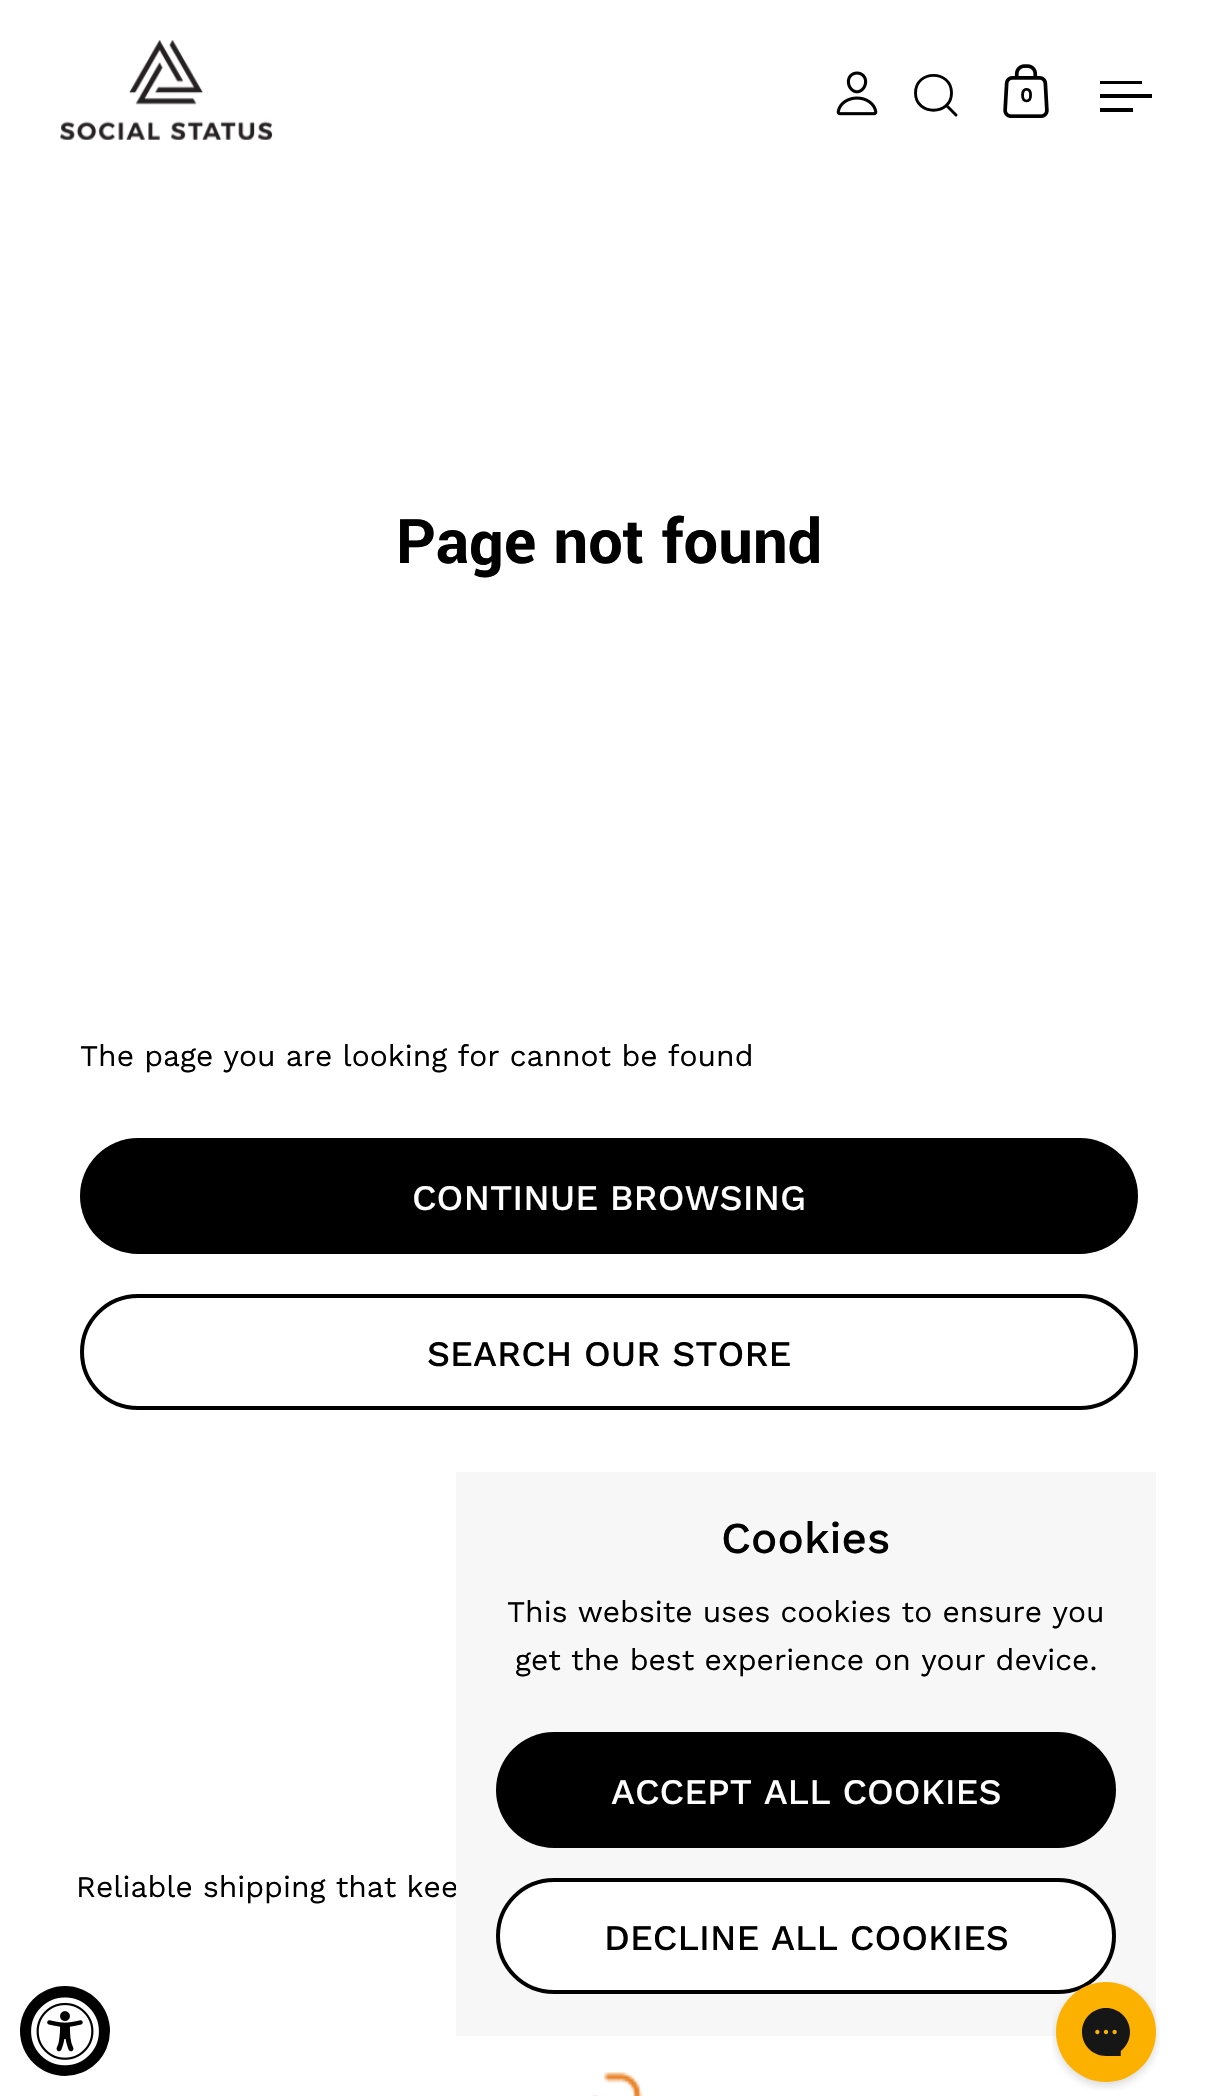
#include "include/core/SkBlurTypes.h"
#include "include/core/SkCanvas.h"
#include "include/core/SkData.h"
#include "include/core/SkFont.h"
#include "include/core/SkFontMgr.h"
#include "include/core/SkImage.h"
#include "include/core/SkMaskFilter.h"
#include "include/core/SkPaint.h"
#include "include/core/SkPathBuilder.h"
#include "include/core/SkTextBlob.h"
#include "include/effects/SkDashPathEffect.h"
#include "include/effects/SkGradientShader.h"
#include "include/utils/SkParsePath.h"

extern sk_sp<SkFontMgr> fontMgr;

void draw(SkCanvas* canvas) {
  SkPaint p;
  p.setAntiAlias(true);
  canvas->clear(SK_ColorWHITE);
  canvas->drawImageRect(SkImages::DeferredFromEncodedData(SkData::MakeFromFileName("images/1.png")), SkRect::MakeLTRB(60, 40, 273, 140), SkSamplingOptions());
  canvas->drawImageRect(SkImages::DeferredFromEncodedData(SkData::MakeFromFileName("images/2.png")), SkRect::MakeLTRB(836, 71, 878, 116), SkSamplingOptions());
  p.setStyle(SkPaint::kStroke_Style);
  p.setStrokeWidth(2.9f);
  p.setStrokeCap(SkPaint::kRound_Cap);
  p.setStrokeJoin(SkPaint::kRound_Join);
  p.setColor(SK_ColorBLACK);
  canvas->drawPath(SkPathBuilder().moveTo(947, 106).lineTo(956, 115).moveTo(915.5f, 93).cubicTo(915.5f, 116, 951.5f, 116, 951.5f, 93).cubicTo(951.5f, 69.5f, 915.5f, 69.5f, 915.5f, 93).close().detach(), p);
  canvas->drawImageRect(SkImages::DeferredFromEncodedData(SkData::MakeFromFileName("images/3.png")), SkRect::MakeLTRB(1003, 64, 1049, 118), SkSamplingOptions());
  p.setStyle(SkPaint::kFill_Style);
  canvas->drawRect(SkRect::MakeLTRB(1100, 81, 1142, 84), p);
  canvas->drawRect(SkRect::MakeLTRB(1100, 94, 1152, 98), p);
  canvas->drawRect(SkRect::MakeLTRB(1100, 108, 1133, 112), p);
  canvas->drawRoundRect(SkRect::MakeLTRB(80, 1138, 1138, 1254), 58, 58, p);
  p.setStyle(SkPaint::kStroke_Style);
  p.setStrokeWidth(4);
  p.setStrokeCap(SkPaint::kButt_Cap);
  p.setStrokeJoin(SkPaint::kMiter_Join);
  canvas->drawRoundRect(SkRect::MakeLTRB(82, 1296, 1136, 1408), 56, 56, p);
  canvas->drawImageRect(SkImages::DeferredFromEncodedData(SkData::MakeFromFileName("images/4.png")), SkRect::MakeLTRB(591, 2072, 642, 2096), SkSamplingOptions());
  p.setStyle(SkPaint::kFill_Style);
  canvas->drawCircle(65, 2031, 45, p);
  canvas->drawImageRect(SkImages::DeferredFromEncodedData(SkData::MakeFromFileName("images/5.png")), SkRect::MakeLTRB(31, 1997, 99, 2066), SkSamplingOptions());
  SkFont font1(fontMgr->matchFamilyStyle("Work Sans", SkFontStyle::Bold()), 20);
  font1.setSubpixel(true);
  canvas->drawString("0", 1020, 102, font1, p);
  SkFont font2(fontMgr->matchFamilyStyle("Yantramanav", SkFontStyle::Bold()), 68.25f);
  font2.setSubpixel(true);
  canvas->drawString("Page not found", 396, 563, font2, p);
  SkFont font3(fontMgr->matchFamilyStyle("Work Sans", SkFontStyle::Normal()), 30);
  font3.setSubpixel(true);
  canvas->drawString("The page you are looking for cannot be found", 80, 1066, font3, p);
  SkFont font4(fontMgr->matchFamilyStyle("Work Sans", SkFontStyle(500, SkFontStyle::kNormal_Width, SkFontStyle::kUpright_Slant)), 36);
  font4.setSubpixel(true);
  p.setColor(SK_ColorWHITE);
  canvas->drawString("CONTINUE BROWSING", 412, 1210, font4, p);
  p.setColor(SK_ColorBLACK);
  canvas->drawString("SEARCH OUR STORE", 427, 1366, font4, p);
  canvas->drawString("Reliable shipping that kee", 76, 1897, font3, p);
  p.setColor(SkColorSetRGB(247, 247, 247));
  canvas->drawRect(SkRect::MakeLTRB(456, 1472, 1156, 2036), p);
  SkFont font5(fontMgr->matchFamilyStyle("Work Sans", SkFontStyle(500, SkFontStyle::kNormal_Width, SkFontStyle::kUpright_Slant)), 44);
  font5.setSubpixel(true);
  p.setColor(SK_ColorBLACK);
  canvas->drawString("Cookies", 721, 1553, font5, p);
  canvas->drawString("This website uses cookies to ensure you", 507, 1622, font3, p);
  canvas->drawString("get the best experience on your device.", 515, 1670, font3, p);
  canvas->drawRoundRect(SkRect::MakeLTRB(496, 1732, 1116, 1848), 58, 58, p);
  p.setColor(SK_ColorWHITE);
  canvas->drawString("ACCEPT ALL COOKIES", 611, 1804, font4, p);
  canvas->drawRoundRect(SkRect::MakeLTRB(498, 1880, 1114, 1992), 56, 56, p);
  p.setStyle(SkPaint::kStroke_Style);
  p.setColor(SK_ColorBLACK);
  canvas->drawRoundRect(SkRect::MakeLTRB(498, 1880, 1114, 1992), 56, 56, p);
  p.setStyle(SkPaint::kFill_Style);
  canvas->drawString("DECLINE ALL COOKIES", 604, 1950, font4, p);
  canvas->drawImageRect(SkImages::DeferredFromEncodedData(SkData::MakeFromFileName("images/6.png")), SkRect::MakeLTRB(1052, 1982, 1160, 2090), SkSamplingOptions());
}
